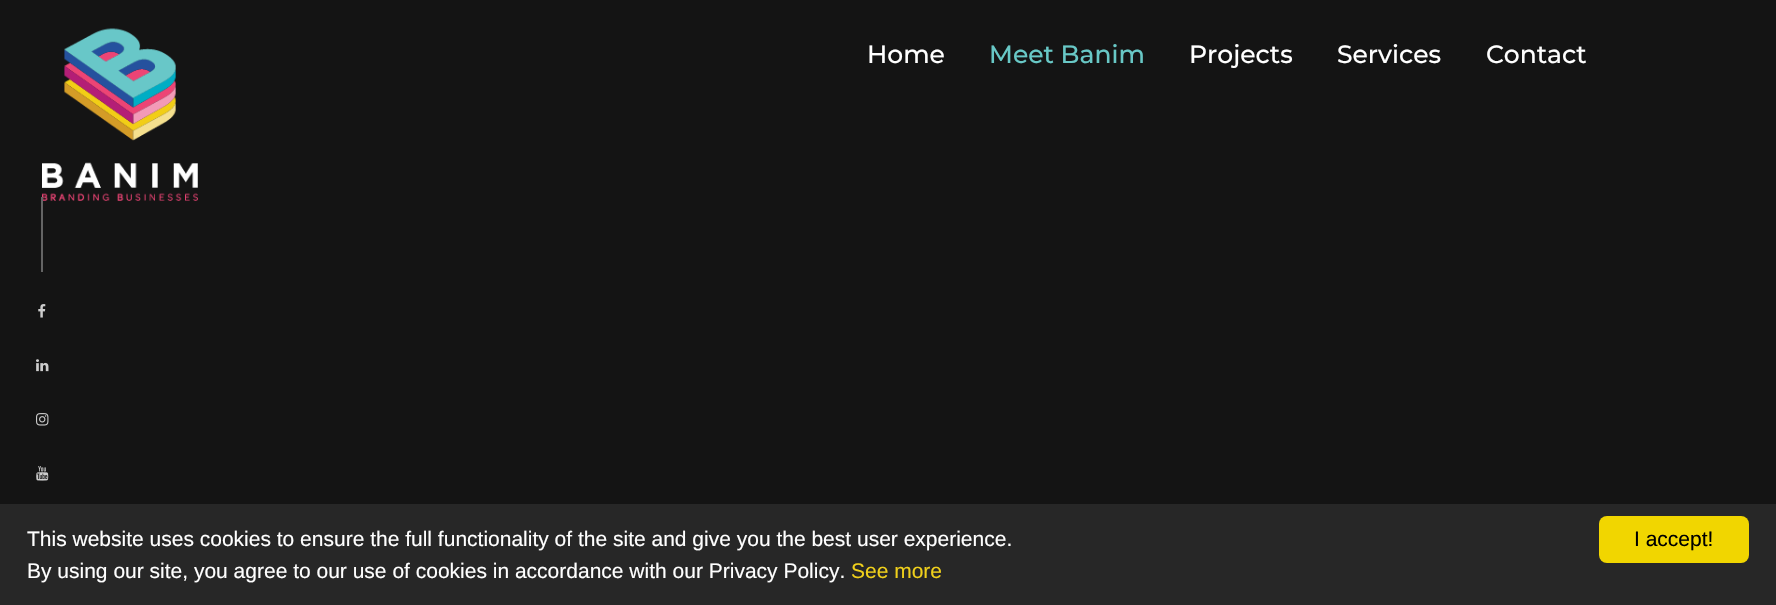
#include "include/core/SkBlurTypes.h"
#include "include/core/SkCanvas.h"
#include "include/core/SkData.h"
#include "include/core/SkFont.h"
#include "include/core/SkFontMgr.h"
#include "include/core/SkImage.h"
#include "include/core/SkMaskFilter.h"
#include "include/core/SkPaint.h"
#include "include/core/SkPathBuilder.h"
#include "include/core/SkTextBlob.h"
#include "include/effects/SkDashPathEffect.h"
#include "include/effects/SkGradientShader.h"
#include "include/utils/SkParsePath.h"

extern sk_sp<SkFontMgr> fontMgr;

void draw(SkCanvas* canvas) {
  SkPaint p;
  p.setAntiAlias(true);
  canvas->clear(SkColorSetRGB(20, 20, 20));
  canvas->drawImageRect(SkImages::DeferredFromEncodedData(SkData::MakeFromFileName("images/1.png")), SkRect::MakeLTRB(42, 28, 198, 201), SkSamplingOptions());
  p.setColor(SkColorSetRGB(100, 100, 100));
  canvas->drawRect(SkRect::MakeLTRB(41, 197, 43, 272), p);
  canvas->drawImageRect(SkImages::DeferredFromEncodedData(SkData::MakeFromFileName("images/2.png")), SkRect::MakeLTRB(38, 304, 46, 318), SkSamplingOptions());
  canvas->drawImageRect(SkImages::DeferredFromEncodedData(SkData::MakeFromFileName("images/3.png")), SkRect::MakeLTRB(36, 359, 49, 372), SkSamplingOptions());
  canvas->drawImageRect(SkImages::DeferredFromEncodedData(SkData::MakeFromFileName("images/4.png")), SkRect::MakeLTRB(36, 413, 49, 426), SkSamplingOptions());
  canvas->drawImageRect(SkImages::DeferredFromEncodedData(SkData::MakeFromFileName("images/5.png")), SkRect::MakeLTRB(36, 466, 49, 481), SkSamplingOptions());
  p.setColor(SkColorSetRGB(39, 39, 39));
  canvas->drawRect(SkRect::MakeLTRB(0, 504, 1776, 605), p);
  p.setColor(SkColorSetRGB(241, 214, 0));
  canvas->drawRoundRect(SkRect::MakeLTRB(1599, 516, 1749, 563), 8, 8, p);
  SkFont font1(fontMgr->matchFamilyStyle("Montserrat", SkFontStyle(500, SkFontStyle::kNormal_Width, SkFontStyle::kUpright_Slant)), 25);
  font1.setSubpixel(true);
  p.setColor(SK_ColorWHITE);
  canvas->drawString("Home", 867, 63, font1, p);
  p.setColor(SkColorSetRGB(104, 200, 198));
  canvas->drawString("Meet Banim", 989, 63, font1, p);
  p.setColor(SK_ColorWHITE);
  canvas->drawString("Projects", 1189, 63, font1, p);
  canvas->drawString("Services", 1337, 63, font1, p);
  canvas->drawString("Contact", 1486, 63, font1, p);
  SkFont font2(fontMgr->matchFamilyStyle("Liberation Sans", SkFontStyle::Normal()), 21);
  font2.setSubpixel(true);
  canvas->drawString("This website uses cookies to ensure the full functionality of the site and give you the best user experience.", 27, 546, font2, p);
  canvas->drawString("By using our site, you agree to our use of cookies in accordance with our Privacy Policy.", 27, 578, font2, p);
  p.setColor(SkColorSetRGB(240, 208, 27));
  canvas->drawString("See more", 851, 578, font2, p);
  p.setColor(SK_ColorBLACK);
  canvas->drawString("I accept!", 1634, 546, font2, p);
}
